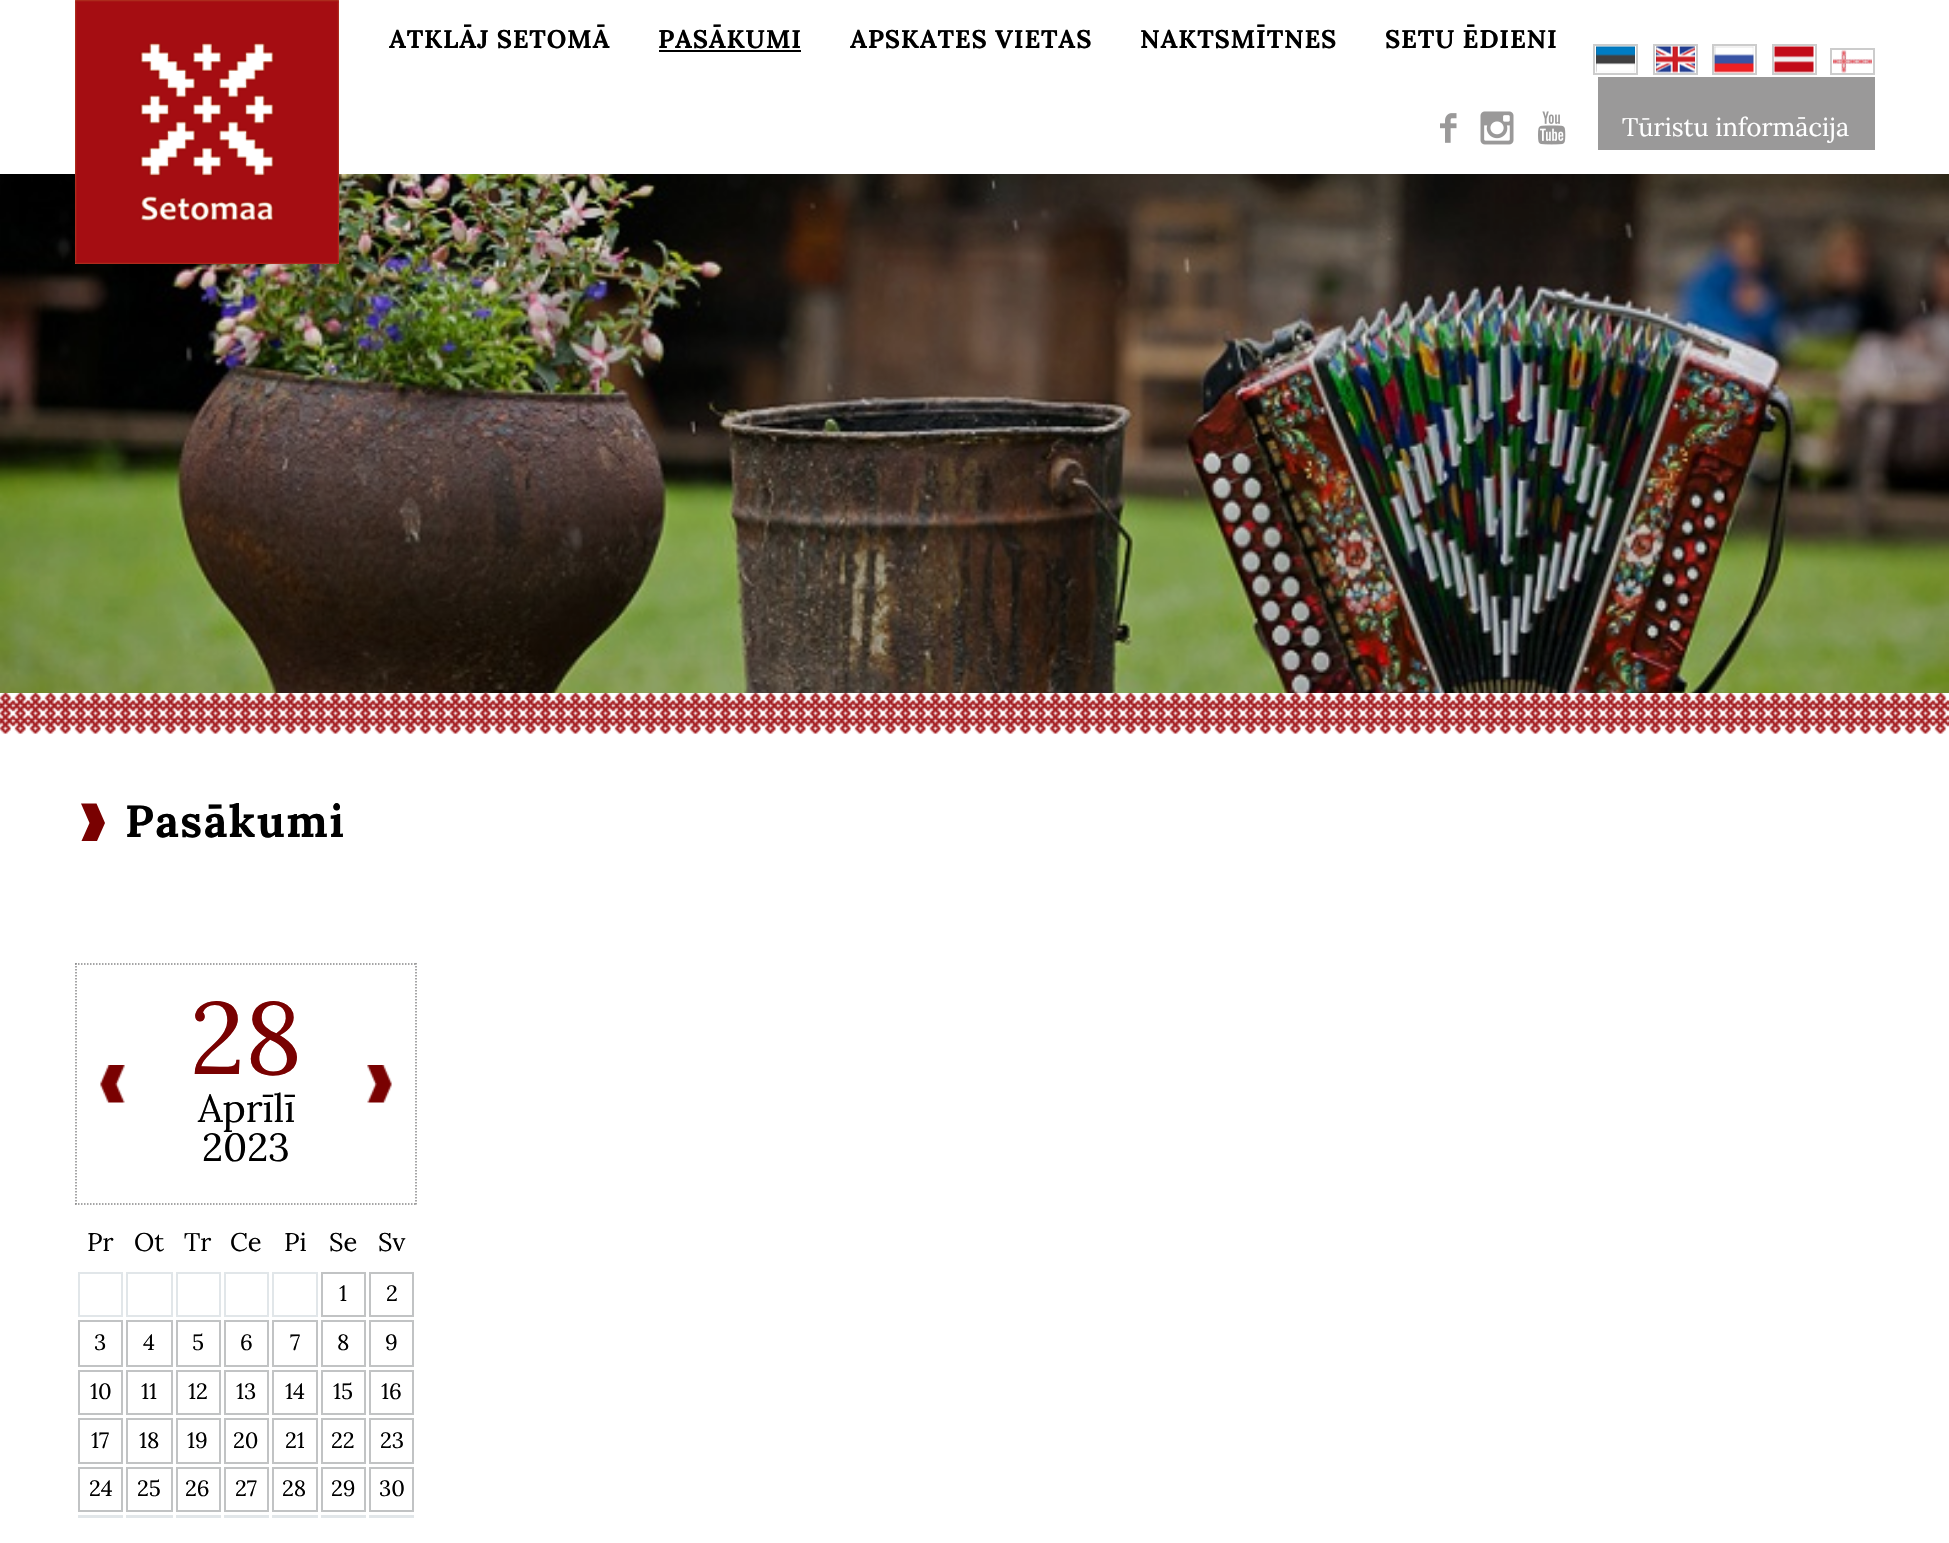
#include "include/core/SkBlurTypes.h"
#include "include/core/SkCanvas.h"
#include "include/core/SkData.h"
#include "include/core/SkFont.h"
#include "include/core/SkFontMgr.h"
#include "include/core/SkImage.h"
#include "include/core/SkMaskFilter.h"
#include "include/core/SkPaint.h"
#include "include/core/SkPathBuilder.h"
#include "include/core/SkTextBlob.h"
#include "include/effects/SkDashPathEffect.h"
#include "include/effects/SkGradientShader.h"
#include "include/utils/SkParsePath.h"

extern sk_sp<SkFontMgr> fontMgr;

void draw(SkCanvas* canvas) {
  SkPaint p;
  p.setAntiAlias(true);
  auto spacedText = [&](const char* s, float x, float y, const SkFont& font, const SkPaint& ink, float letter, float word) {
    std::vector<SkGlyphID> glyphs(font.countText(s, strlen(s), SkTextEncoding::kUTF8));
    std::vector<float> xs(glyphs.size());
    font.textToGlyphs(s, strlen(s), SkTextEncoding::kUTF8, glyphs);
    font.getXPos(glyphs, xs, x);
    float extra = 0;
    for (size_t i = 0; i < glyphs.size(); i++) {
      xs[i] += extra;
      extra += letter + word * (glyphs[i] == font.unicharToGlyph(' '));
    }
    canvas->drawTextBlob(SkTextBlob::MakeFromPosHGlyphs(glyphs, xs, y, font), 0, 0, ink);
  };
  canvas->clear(SK_ColorWHITE);
  canvas->drawImageRect(SkImages::DeferredFromEncodedData(SkData::MakeFromFileName("images/10.png")), SkRect::MakeLTRB(0, 174, 1949, 693), SkSamplingOptions());
  canvas->drawImageRect(SkImages::DeferredFromEncodedData(SkData::MakeFromFileName("images/1.png")), SkRect::MakeLTRB(75, 0, 339, 264), SkSamplingOptions());
  p.setColor(SK_ColorBLACK);
  canvas->drawRect(SkRect::MakeLTRB(659, 50, 801, 52), p);
  p.setStyle(SkPaint::kStroke_Style);
  p.setStrokeWidth(2);
  p.setColor(SkColorSetRGB(204, 204, 204));
  canvas->drawRect(SkRect::MakeLTRB(1594, 45, 1637, 74), p);
  canvas->drawImageRect(SkImages::DeferredFromEncodedData(SkData::MakeFromFileName("images/2.png")), SkRect::MakeLTRB(1596, 46, 1635, 73), SkSamplingOptions());
  canvas->drawRect(SkRect::MakeLTRB(1654, 45, 1697, 74), p);
  canvas->drawImageRect(SkImages::DeferredFromEncodedData(SkData::MakeFromFileName("images/3.png")), SkRect::MakeLTRB(1656, 46, 1695, 73), SkSamplingOptions());
  canvas->drawRect(SkRect::MakeLTRB(1713, 45, 1756, 74), p);
  canvas->drawImageRect(SkImages::DeferredFromEncodedData(SkData::MakeFromFileName("images/4.png")), SkRect::MakeLTRB(1714, 46, 1754, 73), SkSamplingOptions());
  canvas->drawRect(SkRect::MakeLTRB(1773, 45, 1816, 74), p);
  canvas->drawImageRect(SkImages::DeferredFromEncodedData(SkData::MakeFromFileName("images/5.png")), SkRect::MakeLTRB(1774, 46, 1814, 73), SkSamplingOptions());
  canvas->drawRect(SkRect::MakeLTRB(1831, 49, 1874, 74), p);
  canvas->drawImageRect(SkImages::DeferredFromEncodedData(SkData::MakeFromFileName("images/6.png")), SkRect::MakeLTRB(1833, 50, 1872, 73), SkSamplingOptions());
  canvas->drawImageRect(SkImages::DeferredFromEncodedData(SkData::MakeFromFileName("images/7.png")), SkRect::MakeLTRB(1440, 113, 1457, 143), SkSamplingOptions());
  canvas->drawImageRect(SkImages::DeferredFromEncodedData(SkData::MakeFromFileName("images/8.png")), SkRect::MakeLTRB(1480, 111, 1514, 145), SkSamplingOptions());
  canvas->drawImageRect(SkImages::DeferredFromEncodedData(SkData::MakeFromFileName("images/9.png")), SkRect::MakeLTRB(1538, 111, 1566, 145), SkSamplingOptions());
  p.setStyle(SkPaint::kFill_Style);
  p.setColor(SkColorSetRGB(154, 153, 153));
  canvas->drawRect(SkRect::MakeLTRB(1598, 77, 1875, 150), p);
  canvas->drawImageRect(SkImages::DeferredFromEncodedData(SkData::MakeFromFileName("images/11.png")), SkRect::MakeLTRB(0, 693, 1949, 734), SkSamplingOptions());
  p.setColor(SkColorSetRGB(121, 1, 1));
  canvas->drawPath(SkPathBuilder().moveTo(81, 803.5f).lineTo(89.5f, 823).lineTo(81.5f, 841).lineTo(97, 841).lineTo(105, 823).lineTo(96.5f, 803.5f).close().detach(), p);
  p.setStyle(SkPaint::kStroke_Style);
  p.setStrokeWidth(1.5f);
  p.setColor(SkColorSetRGB(136, 136, 137));
  p.setPathEffect(SkDashPathEffect::Make({{1.5f, 1.5f}}, 0));
  canvas->drawPath(SkPathBuilder().moveTo(75, 964).lineTo(417, 964).detach(), p);
  p.setPathEffect(nullptr);
  p.setPathEffect(SkDashPathEffect::Make({{1.5f, 1.5f}}, 0));
  canvas->drawPath(SkPathBuilder().moveTo(416, 963).lineTo(416, 1204.5f).detach(), p);
  p.setPathEffect(nullptr);
  p.setPathEffect(SkDashPathEffect::Make({{1.5f, 1.5f}}, 0));
  canvas->drawPath(SkPathBuilder().moveTo(75, 1204).lineTo(417, 1204).detach(), p);
  p.setPathEffect(nullptr);
  p.setPathEffect(SkDashPathEffect::Make({{1.5f, 1.5f}}, 0));
  canvas->drawPath(SkPathBuilder().moveTo(76, 963).lineTo(76, 1204.5f).detach(), p);
  p.setPathEffect(nullptr);
  canvas->drawImageRect(SkImages::DeferredFromEncodedData(SkData::MakeFromFileName("images/12.png")), SkRect::MakeLTRB(100, 1065, 125, 1103), SkSamplingOptions());
  canvas->drawImageRect(SkImages::DeferredFromEncodedData(SkData::MakeFromFileName("images/13.png")), SkRect::MakeLTRB(367, 1065, 392, 1103), SkSamplingOptions());
  p.setStrokeWidth(2);
  p.setColor(SkColorSetRGB(225, 230, 233));
  canvas->drawRect(SkRect::MakeLTRB(79, 1273, 122, 1316), p);
  canvas->drawRect(SkRect::MakeLTRB(127, 1273, 172, 1316), p);
  canvas->drawRect(SkRect::MakeLTRB(177, 1273, 220, 1316), p);
  canvas->drawRect(SkRect::MakeLTRB(225, 1273, 268, 1316), p);
  canvas->drawRect(SkRect::MakeLTRB(273, 1273, 317, 1316), p);
  p.setColor(SkColorSetRGB(193, 195, 196));
  canvas->drawRect(SkRect::MakeLTRB(322, 1273, 365, 1316), p);
  canvas->drawRect(SkRect::MakeLTRB(370, 1273, 413, 1316), p);
  canvas->drawRect(SkRect::MakeLTRB(79, 1321, 122, 1366), p);
  canvas->drawRect(SkRect::MakeLTRB(127, 1321, 172, 1366), p);
  canvas->drawRect(SkRect::MakeLTRB(177, 1321, 220, 1366), p);
  canvas->drawRect(SkRect::MakeLTRB(225, 1321, 268, 1366), p);
  canvas->drawRect(SkRect::MakeLTRB(273, 1321, 317, 1366), p);
  canvas->drawRect(SkRect::MakeLTRB(322, 1321, 365, 1366), p);
  canvas->drawRect(SkRect::MakeLTRB(370, 1321, 413, 1366), p);
  canvas->drawRect(SkRect::MakeLTRB(79, 1371, 122, 1414), p);
  canvas->drawRect(SkRect::MakeLTRB(127, 1371, 172, 1414), p);
  canvas->drawRect(SkRect::MakeLTRB(177, 1371, 220, 1414), p);
  canvas->drawRect(SkRect::MakeLTRB(225, 1371, 268, 1414), p);
  canvas->drawRect(SkRect::MakeLTRB(273, 1371, 317, 1414), p);
  canvas->drawRect(SkRect::MakeLTRB(322, 1371, 365, 1414), p);
  canvas->drawRect(SkRect::MakeLTRB(370, 1371, 413, 1414), p);
  canvas->drawRect(SkRect::MakeLTRB(79, 1419, 122, 1463), p);
  canvas->drawRect(SkRect::MakeLTRB(127, 1419, 172, 1463), p);
  canvas->drawRect(SkRect::MakeLTRB(177, 1419, 220, 1463), p);
  canvas->drawRect(SkRect::MakeLTRB(225, 1419, 268, 1463), p);
  canvas->drawRect(SkRect::MakeLTRB(273, 1419, 317, 1463), p);
  canvas->drawRect(SkRect::MakeLTRB(322, 1419, 365, 1463), p);
  canvas->drawRect(SkRect::MakeLTRB(370, 1419, 413, 1463), p);
  canvas->drawRect(SkRect::MakeLTRB(79, 1468, 122, 1511), p);
  canvas->drawRect(SkRect::MakeLTRB(127, 1468, 172, 1511), p);
  canvas->drawRect(SkRect::MakeLTRB(177, 1468, 220, 1511), p);
  canvas->drawRect(SkRect::MakeLTRB(225, 1468, 268, 1511), p);
  canvas->drawRect(SkRect::MakeLTRB(273, 1468, 317, 1511), p);
  canvas->drawRect(SkRect::MakeLTRB(322, 1468, 365, 1511), p);
  canvas->drawRect(SkRect::MakeLTRB(370, 1468, 413, 1511), p);
  p.setStyle(SkPaint::kFill_Style);
  p.setColor(SkColorSetRGB(225, 230, 233));
  canvas->drawRect(SkRect::MakeLTRB(78, 1515, 123, 1518), p);
  canvas->drawRect(SkRect::MakeLTRB(126, 1515, 173, 1518), p);
  canvas->drawRect(SkRect::MakeLTRB(176, 1515, 221, 1518), p);
  canvas->drawRect(SkRect::MakeLTRB(224, 1515, 269, 1518), p);
  canvas->drawRect(SkRect::MakeLTRB(272, 1515, 318, 1518), p);
  canvas->drawRect(SkRect::MakeLTRB(321, 1515, 366, 1518), p);
  canvas->drawRect(SkRect::MakeLTRB(369, 1515, 414, 1518), p);
  SkFont font1(fontMgr->matchFamilyStyle("Lora", SkFontStyle::Bold()), 25.5f);
  font1.setSubpixel(true);
  p.setColor(SK_ColorBLACK);
  spacedText("ATKLĀJ SETOMĀ", 389, 48, font1, p, 0.75f, 0);
  spacedText("PASĀKUMI", 658, 48, font1, p, 0.75f, 0);
  spacedText("APSKATES VIETAS", 850, 48, font1, p, 0.75f, 0);
  spacedText("NAKTSMĪTNES", 1140, 48, font1, p, 0.75f, 0);
  spacedText("SETU ĒDIENI", 1385, 48, font1, p, 0.75f, 0);
  SkFont font2(fontMgr->matchFamilyStyle("Lora", SkFontStyle::Normal()), 25.5f);
  font2.setSubpixel(true);
  p.setColor(SK_ColorWHITE);
  canvas->drawString("Tūristu informācija", 1622, 136, font2, p);
  SkFont font3(fontMgr->matchFamilyStyle("Lora", SkFontStyle::Bold()), 45);
  font3.setSubpixel(true);
  p.setColor(SK_ColorBLACK);
  spacedText("Pasākumi", 125, 837, font3, p, 1.5f, 0);
  SkFont font4(fontMgr->matchFamilyStyle("Lora", SkFontStyle::Normal()), 102);
  font4.setSubpixel(true);
  p.setColor(SkColorSetRGB(121, 1, 1));
  canvas->drawString("28", 190, 1074, font4, p);
  SkFont font5(fontMgr->matchFamilyStyle("Lora", SkFontStyle::Normal()), 39);
  font5.setSubpixel(true);
  p.setColor(SK_ColorBLACK);
  canvas->drawString("Aprīlī", 198, 1122, font5, p);
  canvas->drawString("2023", 202, 1161, font5, p);
  canvas->drawString("Pr", 87, 1251, font2, p);
  canvas->drawString("Ot", 134, 1251, font2, p);
  canvas->drawString("Tr", 184, 1251, font2, p);
  canvas->drawString("Ce", 230, 1251, font2, p);
  canvas->drawString("Pi", 284, 1251, font2, p);
  canvas->drawString("Se", 329, 1251, font2, p);
  canvas->drawString("Sv", 378, 1251, font2, p);
  SkFont font6(fontMgr->matchFamilyStyle("Lora", SkFontStyle::Normal()), 22);
  font6.setSubpixel(true);
  canvas->drawString("1", 339, 1301, font6, p);
  canvas->drawString("2", 386, 1301, font6, p);
  canvas->drawString("3", 94, 1350, font6, p);
  canvas->drawString("4", 143, 1350, font6, p);
  canvas->drawString("5", 192, 1350, font6, p);
  canvas->drawString("6", 240, 1350, font6, p);
  canvas->drawString("7", 290, 1350, font6, p);
  canvas->drawString("8", 337, 1350, font6, p);
  canvas->drawString("9", 385, 1350, font6, p);
  canvas->drawString("10", 90, 1399, font6, p);
  canvas->drawString("11", 141, 1399, font6, p);
  canvas->drawString("12", 188, 1399, font6, p);
  canvas->drawString("13", 236, 1399, font6, p);
  canvas->drawString("14", 285, 1399, font6, p);
  canvas->drawString("15", 333, 1399, font6, p);
  canvas->drawString("16", 381, 1399, font6, p);
  canvas->drawString("17", 91, 1448, font6, p);
  canvas->drawString("18", 139, 1448, font6, p);
  canvas->drawString("19", 187, 1448, font6, p);
  canvas->drawString("20", 233, 1448, font6, p);
  canvas->drawString("21", 285, 1448, font6, p);
  canvas->drawString("22", 331, 1448, font6, p);
  canvas->drawString("23", 380, 1448, font6, p);
  canvas->drawString("24", 89, 1496, font6, p);
  canvas->drawString("25", 137, 1496, font6, p);
  canvas->drawString("26", 185, 1496, font6, p);
  canvas->drawString("27", 235, 1496, font6, p);
  canvas->drawString("28", 282, 1496, font6, p);
  canvas->drawString("29", 331, 1496, font6, p);
  canvas->drawString("30", 379, 1496, font6, p);
}
